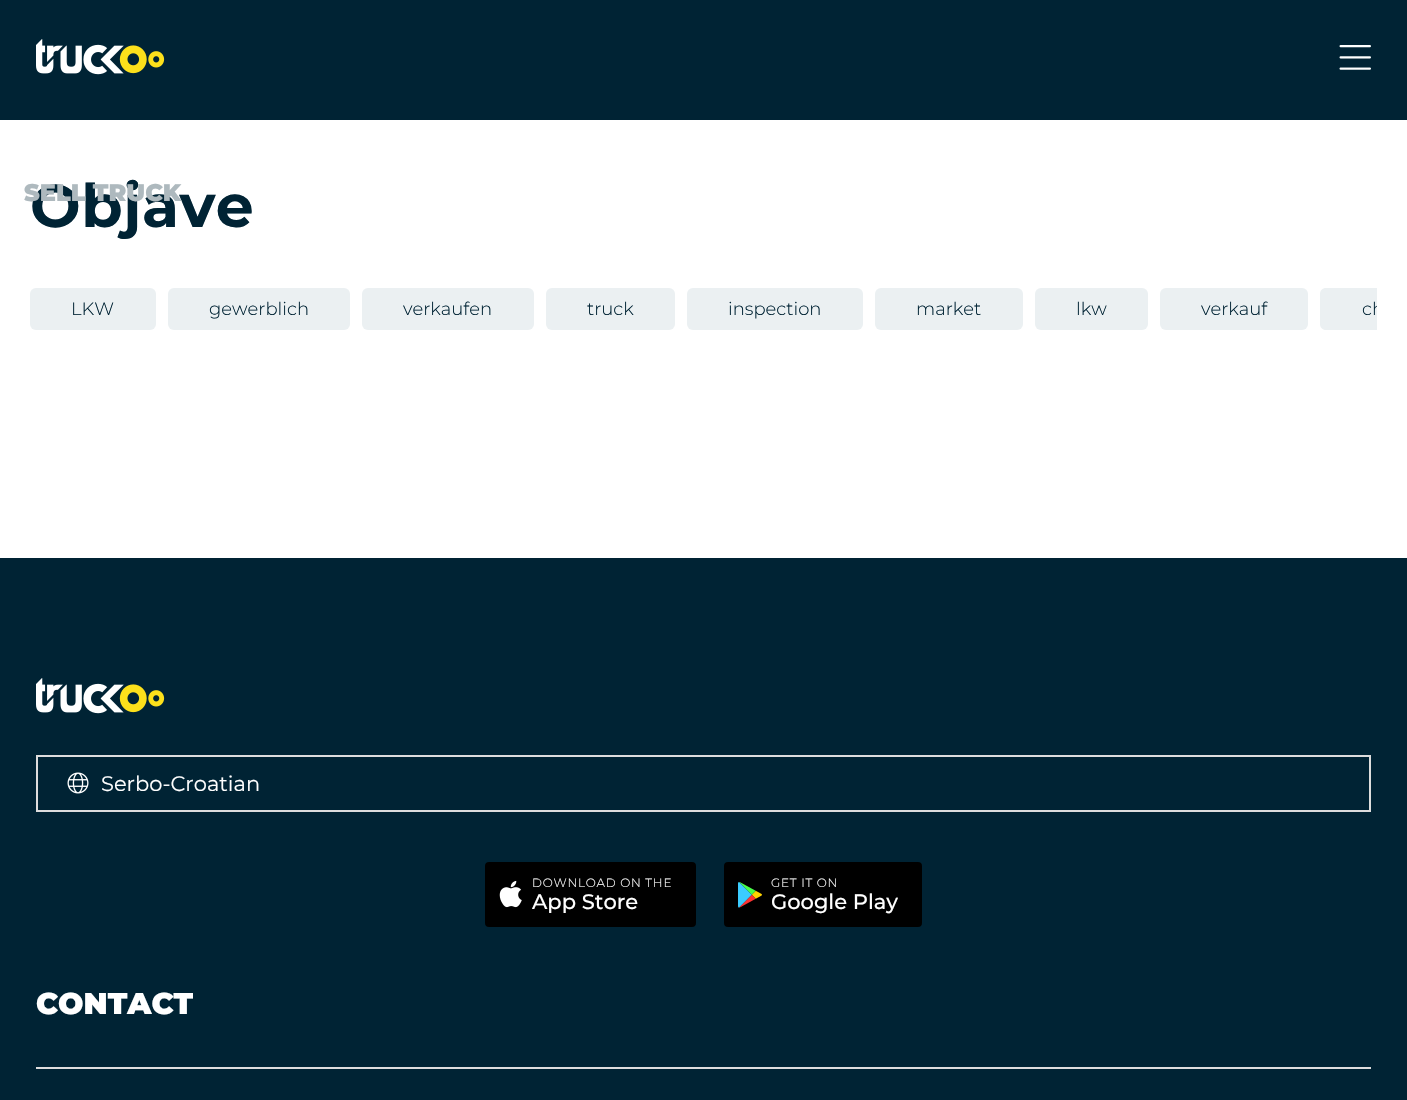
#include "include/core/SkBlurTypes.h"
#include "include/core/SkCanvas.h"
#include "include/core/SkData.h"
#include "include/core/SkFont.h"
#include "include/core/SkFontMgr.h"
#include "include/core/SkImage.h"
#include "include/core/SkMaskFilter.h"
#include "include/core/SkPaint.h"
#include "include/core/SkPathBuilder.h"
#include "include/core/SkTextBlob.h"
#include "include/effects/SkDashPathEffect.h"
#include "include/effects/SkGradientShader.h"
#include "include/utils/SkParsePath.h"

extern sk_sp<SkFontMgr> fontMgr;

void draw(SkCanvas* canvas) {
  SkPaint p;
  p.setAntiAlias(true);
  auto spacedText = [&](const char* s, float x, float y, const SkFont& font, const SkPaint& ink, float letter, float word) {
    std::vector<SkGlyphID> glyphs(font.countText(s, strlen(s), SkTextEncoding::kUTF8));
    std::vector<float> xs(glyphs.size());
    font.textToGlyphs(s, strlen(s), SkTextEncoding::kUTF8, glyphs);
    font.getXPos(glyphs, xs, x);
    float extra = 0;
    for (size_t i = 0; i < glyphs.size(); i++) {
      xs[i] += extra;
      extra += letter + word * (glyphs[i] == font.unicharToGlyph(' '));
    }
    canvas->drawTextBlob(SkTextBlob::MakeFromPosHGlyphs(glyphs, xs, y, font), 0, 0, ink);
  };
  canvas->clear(SK_ColorWHITE);
  p.setColor(SkColorSetRGB(0, 35, 52));
  canvas->drawRect(SkRect::MakeLTRB(0, 0, 1407, 120), p);
  canvas->drawImageRect(SkImages::DeferredFromEncodedData(SkData::MakeFromFileName("images/1.png")), SkRect::MakeLTRB(36, 39, 165, 75), SkSamplingOptions());
  canvas->drawImageRect(SkImages::DeferredFromEncodedData(SkData::MakeFromFileName("images/2.png")), SkRect::MakeLTRB(1339, 45, 1371, 70), SkSamplingOptions());
  p.setColor(SkColorSetRGB(235, 240, 242));
  canvas->drawRoundRect(SkRect::MakeLTRB(30, 288, 156, 330), 6, 6, p);
  canvas->drawRoundRect(SkRect::MakeLTRB(168, 288, 350, 330), 6, 6, p);
  canvas->drawRoundRect(SkRect::MakeLTRB(362, 288, 534, 330), 6, 6, p);
  canvas->drawRoundRect(SkRect::MakeLTRB(546, 288, 675, 330), 6, 6, p);
  canvas->drawRoundRect(SkRect::MakeLTRB(687, 288, 863, 330), 6, 6, p);
  canvas->drawRoundRect(SkRect::MakeLTRB(875, 288, 1023, 330), 6, 6, p);
  canvas->drawRoundRect(SkRect::MakeLTRB(1035, 288, 1148, 330), 6, 6, p);
  canvas->drawRoundRect(SkRect::MakeLTRB(1160, 288, 1308, 330), 6, 6, p);
  canvas->drawPath(SkPathBuilder().moveTo(1326, 288).lineTo(1377, 288).lineTo(1377, 330).lineTo(1326, 330).cubicTo(1322.5f, 330, 1320, 327.5f, 1320, 324).lineTo(1320, 294).cubicTo(1320, 290.5f, 1322.5f, 288, 1326, 288).close().detach(), p);
  p.setColor(SkColorSetRGB(0, 35, 52));
  canvas->drawRect(SkRect::MakeLTRB(0, 558, 1407, 1100), p);
  canvas->drawImageRect(SkImages::DeferredFromEncodedData(SkData::MakeFromFileName("images/1.png")), SkRect::MakeLTRB(36, 678, 165, 714), SkSamplingOptions());
  p.setStyle(SkPaint::kStroke_Style);
  p.setStrokeWidth(2);
  p.setColor(SkColorSetRGB(221, 221, 221));
  canvas->drawRect(SkRect::MakeLTRB(37, 756, 1370, 811), p);
  canvas->drawImageRect(SkImages::DeferredFromEncodedData(SkData::MakeFromFileName("images/3.png")), SkRect::MakeLTRB(67, 772, 89, 794), SkSamplingOptions());
  p.setStyle(SkPaint::kFill_Style);
  p.setColor(SK_ColorBLACK);
  canvas->drawRoundRect(SkRect::MakeLTRB(484, 861, 697, 928), 5, 5, p);
  p.setStyle(SkPaint::kStroke_Style);
  p.setColor(SkColorSetRGB(0, 35, 52));
  canvas->drawRoundRect(SkRect::MakeLTRB(484, 861, 697, 928), 5, 5, p);
  canvas->drawImageRect(SkImages::DeferredFromEncodedData(SkData::MakeFromFileName("images/4.png")), SkRect::MakeLTRB(499, 880, 522, 908), SkSamplingOptions());
  p.setStyle(SkPaint::kFill_Style);
  p.setColor(SK_ColorBLACK);
  canvas->drawRoundRect(SkRect::MakeLTRB(723, 861, 923, 928), 5, 5, p);
  p.setStyle(SkPaint::kStroke_Style);
  p.setColor(SkColorSetRGB(0, 35, 52));
  canvas->drawRoundRect(SkRect::MakeLTRB(723, 861, 923, 928), 5, 5, p);
  canvas->drawImageRect(SkImages::DeferredFromEncodedData(SkData::MakeFromFileName("images/5.png")), SkRect::MakeLTRB(738, 882, 762, 908), SkSamplingOptions());
  p.setStyle(SkPaint::kFill_Style);
  p.setColor(SkColorSetRGB(221, 221, 221));
  canvas->drawRect(SkRect::MakeLTRB(36, 1067, 1371, 1069), p);
  SkFont font1(fontMgr->matchFamilyStyle("Montserrat", SkFontStyle::Bold()), 60);
  font1.setSubpixel(true);
  p.setColor(SkColorSetRGB(0, 35, 52));
  spacedText("Objave", 30, 227, font1, p, 0.5f, 0);
  SkFont font2(fontMgr->matchFamilyStyle("Montserrat", SkFontStyle(900, SkFontStyle::kNormal_Width, SkFontStyle::kUpright_Slant)), 24);
  font2.setSubpixel(true);
  p.setColor(SkColorSetRGB(174, 185, 190));
  canvas->drawString("SELL TRUCK", 24, 201, font2, p);
  SkFont font3(fontMgr->matchFamilyStyle("Montserrat", SkFontStyle(300, SkFontStyle::kNormal_Width, SkFontStyle::kUpright_Slant)), 18);
  font3.setSubpixel(true);
  p.setColor(SkColorSetRGB(0, 35, 52));
  canvas->drawString("LKW", 71, 315, font3, p);
  canvas->drawString("gewerblich", 209, 315, font3, p);
  canvas->drawString("verkaufen", 403, 315, font3, p);
  canvas->drawString("truck", 587, 315, font3, p);
  canvas->drawString("inspection", 728, 315, font3, p);
  canvas->drawString("market", 916, 315, font3, p);
  canvas->drawString("lkw", 1076, 315, font3, p);
  canvas->drawString("verkauf", 1201, 315, font3, p);
  canvas->save();
  canvas->clipRect(SkRect::MakeLTRB(30, 288, 1377, 330));
  canvas->drawString("ch", 1362, 315, font3, p);
  canvas->restore();
  SkFont font4(fontMgr->matchFamilyStyle("Montserrat", SkFontStyle::Normal()), 21);
  font4.setSubpixel(true);
  p.setColor(SK_ColorWHITE);
  canvas->drawString("Serbo-Croatian", 101, 791, font4, p);
  SkFont font5(fontMgr->matchFamilyStyle("Montserrat", SkFontStyle(300, SkFontStyle::kNormal_Width, SkFontStyle::kUpright_Slant)), 12);
  font5.setSubpixel(true);
  spacedText("DOWNLOAD ON THE", 532, 887, font5, p, 0.75f, 0);
  SkFont font6(fontMgr->matchFamilyStyle("Montserrat", SkFontStyle(500, SkFontStyle::kNormal_Width, SkFontStyle::kUpright_Slant)), 21);
  font6.setSubpixel(true);
  canvas->drawString("App Store", 532, 909, font6, p);
  spacedText("GET IT ON", 771, 887, font5, p, 0.75f, 0);
  canvas->drawString("Google Play", 771, 909, font6, p);
  SkFont font7(fontMgr->matchFamilyStyle("Montserrat", SkFontStyle(900, SkFontStyle::kNormal_Width, SkFontStyle::kUpright_Slant)), 30);
  font7.setSubpixel(true);
  canvas->drawString("CONTACT", 36, 1014, font7, p);
}
